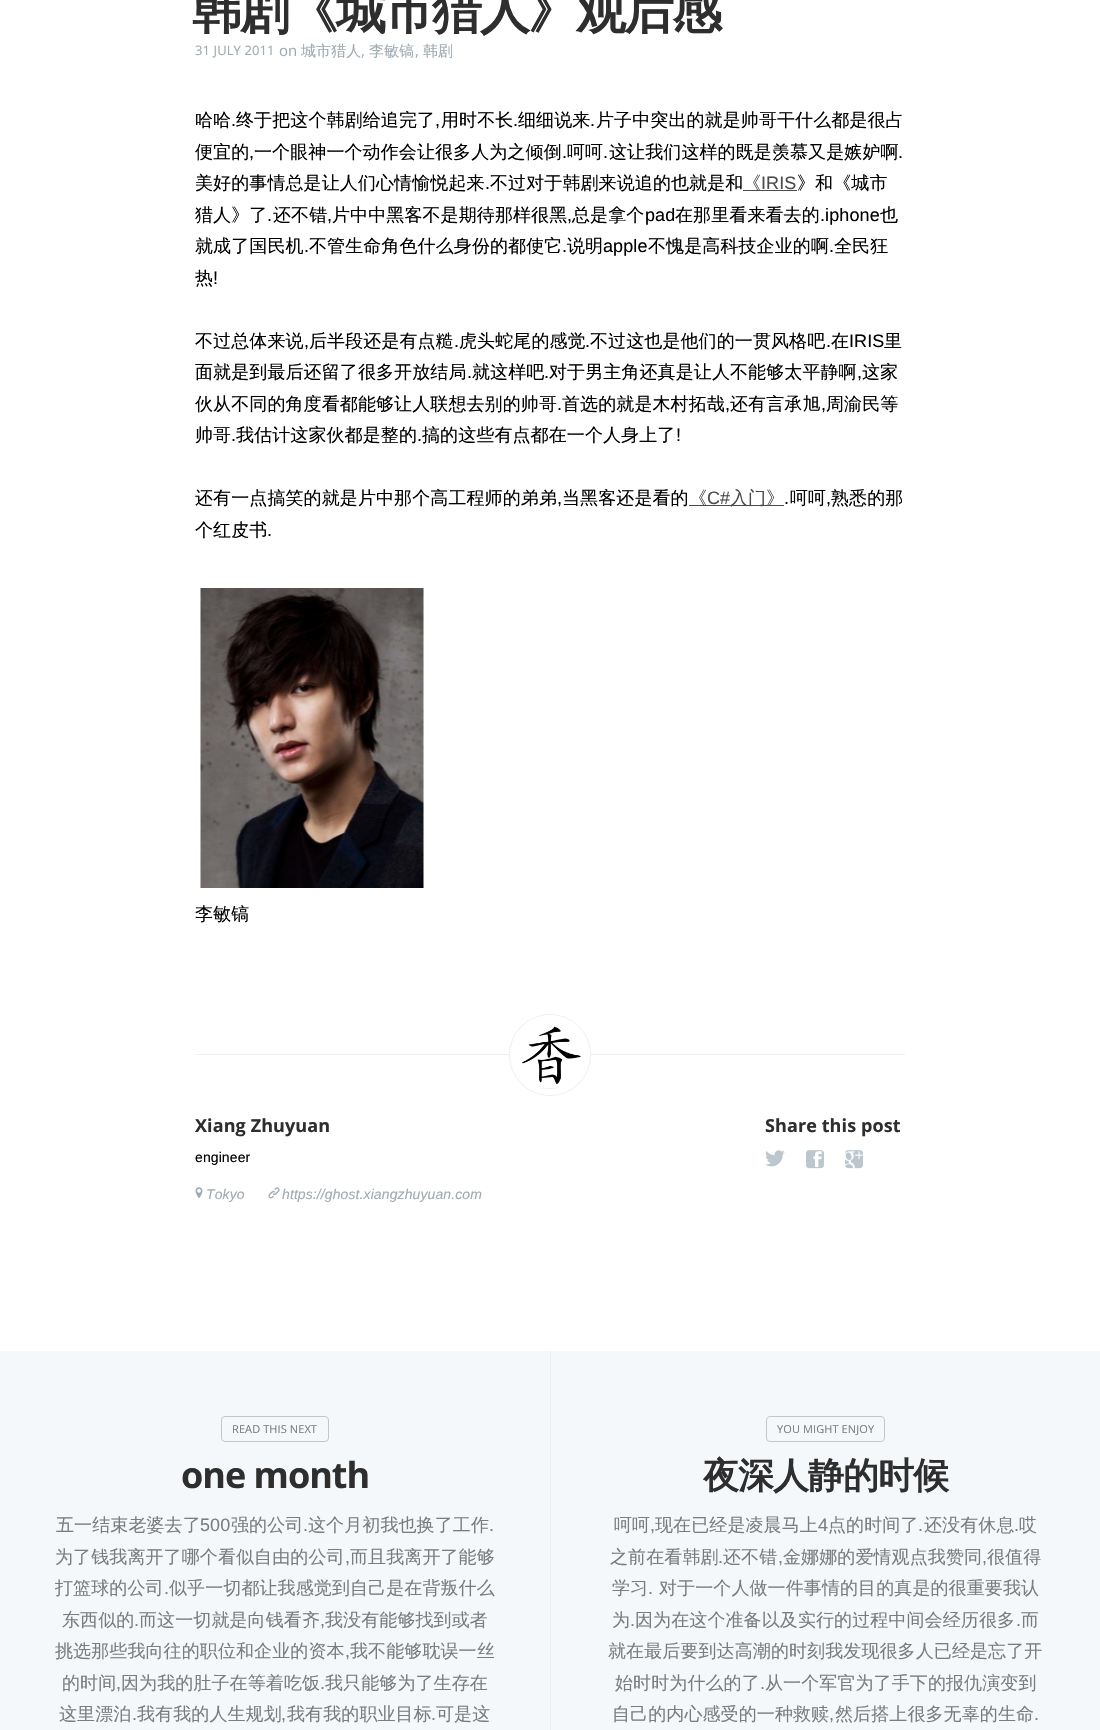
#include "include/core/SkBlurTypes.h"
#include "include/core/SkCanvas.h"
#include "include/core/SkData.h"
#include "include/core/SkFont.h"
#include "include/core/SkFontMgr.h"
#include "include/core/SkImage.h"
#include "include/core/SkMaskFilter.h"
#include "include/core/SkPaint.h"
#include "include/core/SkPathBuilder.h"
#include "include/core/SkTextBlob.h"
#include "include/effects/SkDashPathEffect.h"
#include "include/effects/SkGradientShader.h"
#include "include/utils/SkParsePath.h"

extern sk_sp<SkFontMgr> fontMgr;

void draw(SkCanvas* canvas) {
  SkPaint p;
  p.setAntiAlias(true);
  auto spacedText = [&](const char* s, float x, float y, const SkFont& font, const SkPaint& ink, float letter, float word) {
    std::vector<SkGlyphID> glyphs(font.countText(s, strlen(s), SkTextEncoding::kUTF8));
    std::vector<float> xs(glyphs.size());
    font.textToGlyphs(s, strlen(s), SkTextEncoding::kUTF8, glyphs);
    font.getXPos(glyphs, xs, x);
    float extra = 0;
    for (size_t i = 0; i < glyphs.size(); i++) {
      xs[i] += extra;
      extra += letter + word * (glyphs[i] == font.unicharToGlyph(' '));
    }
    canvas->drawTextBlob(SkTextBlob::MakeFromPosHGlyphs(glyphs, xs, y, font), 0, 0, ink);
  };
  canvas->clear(SK_ColorWHITE);
  p.setColor(SkColorSetRGB(74, 74, 74));
  canvas->drawRect(SkRect::MakeLTRB(743, 190, 797, 191), p);
  canvas->drawRect(SkRect::MakeLTRB(689, 505, 784, 506), p);
  canvas->drawImageRect(SkImages::DeferredFromEncodedData(SkData::MakeFromFileName("images/1.png")), SkRect::MakeLTRB(200, 588, 424, 888), SkSamplingOptions());
  p.setColor(SkColorSetRGB(235, 242, 246));
  canvas->drawRect(SkRect::MakeLTRB(195, 1054, 905, 1055), p);
  p.setStyle(SkPaint::kStroke_Style);
  p.setStrokeWidth(1);
  p.setColor(SkColorSetRGB(231, 238, 242));
  canvas->drawCircle(550, 1055, 40.5f, p);
  p.setStyle(SkPaint::kFill_Style);
  p.setColor(SK_ColorWHITE);
  canvas->drawCircle(550, 1055, 40, p);
  canvas->drawImageRect(SkImages::DeferredFromEncodedData(SkData::MakeFromFileName("images/2.png")), SkRect::MakeLTRB(522, 1026, 581, 1089), SkSamplingOptions());
  canvas->drawImageRect(SkImages::DeferredFromEncodedData(SkData::MakeFromFileName("images/3.png")), SkRect::MakeLTRB(195, 1187, 203, 1199), SkSamplingOptions());
  canvas->drawImageRect(SkImages::DeferredFromEncodedData(SkData::MakeFromFileName("images/4.png")), SkRect::MakeLTRB(268, 1187, 280, 1199), SkSamplingOptions());
  canvas->drawImageRect(SkImages::DeferredFromEncodedData(SkData::MakeFromFileName("images/5.png")), SkRect::MakeLTRB(765, 1150, 785, 1167), SkSamplingOptions());
  canvas->drawImageRect(SkImages::DeferredFromEncodedData(SkData::MakeFromFileName("images/6.png")), SkRect::MakeLTRB(806, 1150, 824, 1169), SkSamplingOptions());
  canvas->drawImageRect(SkImages::DeferredFromEncodedData(SkData::MakeFromFileName("images/7.png")), SkRect::MakeLTRB(845, 1150, 863, 1169), SkSamplingOptions());
  p.setColor(SkColorSetRGB(245, 248, 250));
  canvas->drawRect(SkRect::MakeLTRB(0, 1351, 550, 1730), p);
  p.setStyle(SkPaint::kStroke_Style);
  p.setColor(SkColorSetRGB(196, 198, 200));
  canvas->drawRoundRect(SkRect::MakeLTRB(221.5f, 1416.5f, 328.5f, 1441.5f), 3.5f, 3.5f, p);
  p.setStyle(SkPaint::kFill_Style);
  p.setColor(SkColorSetRGB(245, 248, 250));
  canvas->drawRect(SkRect::MakeLTRB(551, 1351, 1100, 1730), p);
  p.setColor(SkColorSetRGB(235, 238, 244));
  canvas->drawRect(SkRect::MakeLTRB(550, 1351, 551, 1730), p);
  p.setStyle(SkPaint::kStroke_Style);
  p.setColor(SkColorSetRGB(196, 198, 200));
  canvas->drawRoundRect(SkRect::MakeLTRB(766.5f, 1416.5f, 884.5f, 1441.5f), 3.5f, 3.5f, p);
  SkFont font1(fontMgr->matchFamilyStyle("WenQuanYi Zen Hei", SkFontStyle::Bold()), 50);
  font1.setSubpixel(true);
  p.setStyle(SkPaint::kFill_Style);
  p.setColor(SkColorSetRGB(46, 46, 46));
  spacedText("韩剧《城市猎人》观后感", 192, 28, font1, p, -2, 0);
  SkFont font2(fontMgr->matchFamilyStyle("Open Sans", SkFontStyle::Normal()), 13);
  font2.setSubpixel(true);
  p.setColor(SkColorSetRGB(158, 171, 179));
  spacedText("31 JULY 2011", 195, 55, font2, p, 0.1f, 0);
  SkFont font3(fontMgr->matchFamilyStyle("Open Sans", SkFontStyle::Normal()), 15);
  font3.setSubpixel(true);
  spacedText("on", 279, 56, font3, p, 0.1f, 0);
  SkFont font4(fontMgr->matchFamilyStyle("WenQuanYi Zen Hei", SkFontStyle(500, SkFontStyle::kNormal_Width, SkFontStyle::kUpright_Slant)), 15);
  font4.setSubpixel(true);
  spacedText("城市猎人", 301, 56, font4, p, 0.1f, 0);
  spacedText(",", 361, 56, font3, p, 0.1f, 0);
  spacedText("李敏镐", 369, 56, font4, p, 0.1f, 0);
  spacedText(",", 415, 56, font3, p, 0.1f, 0);
  spacedText("韩剧", 423, 56, font4, p, 0.1f, 0);
  SkFont font5(fontMgr->matchFamilyStyle("WenQuanYi Zen Hei", SkFontStyle(500, SkFontStyle::kNormal_Width, SkFontStyle::kUpright_Slant)), 18);
  font5.setSubpixel(true);
  p.setColor(SK_ColorBLACK);
  spacedText("哈哈", 195, 126, font5, p, 0.1f, 0);
  SkFont font6(fontMgr->matchFamilyStyle("Liberation Sans", SkFontStyle::Normal()), 18);
  font6.setSubpixel(true);
  spacedText(".", 231, 126, font6, p, 0.1f, 0);
  spacedText("终于把这个韩剧给追完了", 236, 126, font5, p, 0.1f, 0);
  spacedText(",", 435, 126, font6, p, 0.1f, 0);
  spacedText("用时不长", 441, 126, font5, p, 0.1f, 0);
  spacedText(".", 513, 126, font6, p, 0.1f, 0);
  spacedText("细细说来", 518, 126, font5, p, 0.1f, 0);
  spacedText(".", 590, 126, font6, p, 0.1f, 0);
  spacedText("片子中突出的就是帅哥干什么都是很占", 596, 126, font5, p, 0.1f, 0);
  spacedText("便宜的", 195, 158, font5, p, 0.1f, 0);
  spacedText(",", 249, 158, font6, p, 0.1f, 0);
  spacedText("一个眼神一个动作会让很多人为之倾倒", 254, 158, font5, p, 0.1f, 0);
  spacedText(".", 562, 158, font6, p, 0.1f, 0);
  spacedText("呵呵", 567, 158, font5, p, 0.1f, 0);
  spacedText(".", 603, 158, font6, p, 0.1f, 0);
  spacedText("这让我们这样的既是羡慕又是嫉妒啊", 609, 158, font5, p, 0.1f, 0);
  spacedText(".", 898, 158, font6, p, 0.1f, 0);
  spacedText("美好的事情总是让人们心情愉悦起来", 195, 189, font5, p, 0.1f, 0);
  spacedText(".", 485, 189, font6, p, 0.1f, 0);
  spacedText("不过对于韩剧来说追的也就是和", 490, 189, font5, p, 0.1f, 0);
  p.setColor(SkColorSetRGB(74, 74, 74));
  spacedText("《", 743, 189, font5, p, 0.1f, 0);
  spacedText("IRIS", 761, 189, font6, p, 0.1f, 0);
  p.setColor(SK_ColorBLACK);
  spacedText("》和《城市", 797, 189, font5, p, 0.1f, 0);
  spacedText("猎人》了", 195, 221, font5, p, 0.1f, 0);
  spacedText(".", 267, 221, font6, p, 0.1f, 0);
  spacedText("还不错", 273, 221, font5, p, 0.1f, 0);
  spacedText(",", 327, 221, font6, p, 0.1f, 0);
  spacedText("片中中黑客不是期待那样很黑", 332, 221, font5, p, 0.1f, 0);
  spacedText(",", 567, 221, font6, p, 0.1f, 0);
  spacedText("总是拿个", 572, 221, font5, p, 0.1f, 0);
  spacedText("pad", 645, 221, font6, p, 0.1f, 0);
  spacedText("在那里看来看去的", 675, 221, font5, p, 0.1f, 0);
  spacedText(".iphone", 820, 221, font6, p, 0.1f, 0);
  spacedText("也", 880, 221, font5, p, 0.1f, 0);
  spacedText("就成了国民机", 195, 252, font5, p, 0.1f, 0);
  spacedText(".", 304, 252, font6, p, 0.1f, 0);
  spacedText("不管生命角色什么身份的都使它", 309, 252, font5, p, 0.1f, 0);
  spacedText(".", 562, 252, font6, p, 0.1f, 0);
  spacedText("说明", 567, 252, font5, p, 0.1f, 0);
  spacedText("apple", 603, 252, font6, p, 0.1f, 0);
  spacedText("不愧是高科技企业的啊", 648, 252, font5, p, 0.1f, 0);
  spacedText(".", 829, 252, font6, p, 0.1f, 0);
  spacedText("全民狂", 834, 252, font5, p, 0.1f, 0);
  spacedText("热", 195, 284, font5, p, 0.1f, 0);
  spacedText("!", 213, 284, font6, p, 0.1f, 0);
  spacedText("不过总体来说", 195, 347, font5, p, 0.1f, 0);
  spacedText(",", 304, 347, font6, p, 0.1f, 0);
  spacedText("后半段还是有点糙", 309, 347, font5, p, 0.1f, 0);
  spacedText(".", 454, 347, font6, p, 0.1f, 0);
  spacedText("虎头蛇尾的感觉", 459, 347, font5, p, 0.1f, 0);
  spacedText(".", 585, 347, font6, p, 0.1f, 0);
  spacedText("不过这也是他们的一贯风格吧", 590, 347, font5, p, 0.1f, 0);
  spacedText(".", 826, 347, font6, p, 0.1f, 0);
  spacedText("在", 831, 347, font5, p, 0.1f, 0);
  spacedText("IRIS", 849, 347, font6, p, 0.1f, 0);
  spacedText("里", 884, 347, font5, p, 0.1f, 0);
  spacedText("面就是到最后还留了很多开放结局", 195, 378, font5, p, 0.1f, 0);
  spacedText(".", 467, 378, font6, p, 0.1f, 0);
  spacedText("就这样吧", 472, 378, font5, p, 0.1f, 0);
  spacedText(".", 544, 378, font6, p, 0.1f, 0);
  spacedText("对于男主角还真是让人不能够太平静啊", 549, 378, font5, p, 0.1f, 0);
  spacedText(",", 857, 378, font6, p, 0.1f, 0);
  spacedText("这家", 862, 378, font5, p, 0.1f, 0);
  spacedText("伙从不同的角度看都能够让人联想去别的帅哥", 195, 410, font5, p, 0.1f, 0);
  spacedText(".", 557, 410, font6, p, 0.1f, 0);
  spacedText("首选的就是木村拓哉", 562, 410, font5, p, 0.1f, 0);
  spacedText(",", 725, 410, font6, p, 0.1f, 0);
  spacedText("还有言承旭", 730, 410, font5, p, 0.1f, 0);
  spacedText(",", 821, 410, font6, p, 0.1f, 0);
  spacedText("周渝民等", 826, 410, font5, p, 0.1f, 0);
  spacedText("帅哥", 195, 441, font5, p, 0.1f, 0);
  spacedText(".", 231, 441, font6, p, 0.1f, 0);
  spacedText("我估计这家伙都是整的", 236, 441, font5, p, 0.1f, 0);
  spacedText(".", 417, 441, font6, p, 0.1f, 0);
  spacedText("搞的这些有点都在一个人身上了", 422, 441, font5, p, 0.1f, 0);
  spacedText("!", 676, 441, font6, p, 0.1f, 0);
  spacedText("还有一点搞笑的就是片中那个高工程师的弟弟", 195, 504, font5, p, 0.1f, 0);
  spacedText(",", 557, 504, font6, p, 0.1f, 0);
  spacedText("当黑客还是看的", 562, 504, font5, p, 0.1f, 0);
  p.setColor(SkColorSetRGB(74, 74, 74));
  spacedText("《", 689, 504, font5, p, 0.1f, 0);
  spacedText("C#", 707, 504, font6, p, 0.1f, 0);
  spacedText("入门》", 730, 504, font5, p, 0.1f, 0);
  p.setColor(SK_ColorBLACK);
  spacedText(".", 784, 504, font6, p, 0.1f, 0);
  spacedText("呵呵", 790, 504, font5, p, 0.1f, 0);
  spacedText(",", 826, 504, font6, p, 0.1f, 0);
  spacedText("熟悉的那", 831, 504, font5, p, 0.1f, 0);
  spacedText("个红皮书", 195, 536, font5, p, 0.1f, 0);
  spacedText(".", 267, 536, font6, p, 0.1f, 0);
  spacedText("李敏镐", 195, 920, font5, p, 0.1f, 0);
  SkFont font7(fontMgr->matchFamilyStyle("Open Sans", SkFontStyle::Bold()), 18);
  font7.setSubpixel(true);
  p.setColor(SkColorSetRGB(46, 46, 46));
  spacedText("Xiang Zhuyuan", 195, 1132, font7, p, 0.1f, 0);
  SkFont font8(fontMgr->matchFamilyStyle("Liberation Sans", SkFontStyle::Normal()), 14);
  font8.setSubpixel(true);
  p.setColor(SK_ColorBLACK);
  spacedText("engineer", 195, 1162, font8, p, 0.1f, 0);
  SkFont font9(fontMgr->matchFamilyStyle("Liberation Sans", SkFontStyle::Italic()), 14);
  font9.setSubpixel(true);
  p.setColor(SkColorSetRGB(158, 171, 179));
  spacedText("Tokyo", 206, 1199, font9, p, 0.1f, 0);
  spacedText("https://ghost.xiangzhuyuan.com", 282, 1199, font9, p, 0.1f, 0);
  p.setColor(SkColorSetRGB(46, 46, 46));
  spacedText("Share this post", 765, 1132, font7, p, 0.1f, 0);
  SkFont font10(fontMgr->matchFamilyStyle("Open Sans", SkFontStyle::Normal()), 11);
  font10.setSubpixel(true);
  p.setColor(SkColorSetRGB(123, 124, 125));
  spacedText("READ THIS NEXT", 232, 1433, font10, p, 0.1f, 0);
  SkFont font11(fontMgr->matchFamilyStyle("Open Sans", SkFontStyle::Bold()), 36);
  font11.setSubpixel(true);
  p.setColor(SkColorSetRGB(46, 46, 46));
  spacedText("one month", 181, 1488, font11, p, -1, 0);
  p.setColor(SkColorSetRGB(123, 124, 125));
  spacedText("五一结束老婆去了", 56, 1531, font5, p, 0.1f, 0);
  spacedText("500", 200, 1531, font6, p, 0.1f, 0);
  spacedText("强的公司", 231, 1531, font5, p, 0.1f, 0);
  spacedText(".", 303, 1531, font6, p, 0.1f, 0);
  spacedText("这个月初我也换了工作", 308, 1531, font5, p, 0.1f, 0);
  spacedText(".", 489, 1531, font6, p, 0.1f, 0);
  spacedText("为了钱我离开了哪个看似自由的公司", 55, 1563, font5, p, 0.1f, 0);
  spacedText(",", 345, 1563, font6, p, 0.1f, 0);
  spacedText("而且我离开了能够", 350, 1563, font5, p, 0.1f, 0);
  spacedText("打篮球的公司", 55, 1594, font5, p, 0.1f, 0);
  spacedText(".", 164, 1594, font6, p, 0.1f, 0);
  spacedText("似乎一切都让我感觉到自己是在背叛什么", 169, 1594, font5, p, 0.1f, 0);
  spacedText("东西似的", 62, 1626, font5, p, 0.1f, 0);
  spacedText(".", 134, 1626, font6, p, 0.1f, 0);
  spacedText("而这一切就是向钱看齐", 139, 1626, font5, p, 0.1f, 0);
  spacedText(",", 320, 1626, font6, p, 0.1f, 0);
  spacedText("我没有能够找到或者", 325, 1626, font5, p, 0.1f, 0);
  spacedText("挑选那些我向往的职位和企业的资本", 55, 1657, font5, p, 0.1f, 0);
  spacedText(",", 345, 1657, font6, p, 0.1f, 0);
  spacedText("我不能够耽误一丝", 350, 1657, font5, p, 0.1f, 0);
  spacedText("的时间", 62, 1689, font5, p, 0.1f, 0);
  spacedText(",", 116, 1689, font6, p, 0.1f, 0);
  spacedText("因为我的肚子在等着吃饭", 121, 1689, font5, p, 0.1f, 0);
  spacedText(".", 320, 1689, font6, p, 0.1f, 0);
  spacedText("我只能够为了生存在", 325, 1689, font5, p, 0.1f, 0);
  spacedText("这里漂泊", 59, 1720, font5, p, 0.1f, 0);
  spacedText(".", 132, 1720, font6, p, 0.1f, 0);
  spacedText("我有我的人生规划", 137, 1720, font5, p, 0.1f, 0);
  spacedText(",", 281, 1720, font6, p, 0.1f, 0);
  spacedText("我有我的职业目标", 287, 1720, font5, p, 0.1f, 0);
  spacedText(".", 431, 1720, font6, p, 0.1f, 0);
  spacedText("可是这", 436, 1720, font5, p, 0.1f, 0);
  spacedText("YOU MIGHT ENJOY", 777, 1433, font10, p, 0.1f, 0);
  SkFont font12(fontMgr->matchFamilyStyle("WenQuanYi Zen Hei", SkFontStyle::Bold()), 36);
  font12.setSubpixel(true);
  p.setColor(SkColorSetRGB(46, 46, 46));
  spacedText("夜深人静的时候", 703, 1488, font12, p, -1, 0);
  p.setColor(SkColorSetRGB(123, 124, 125));
  spacedText("呵呵", 614, 1531, font5, p, 0.1f, 0);
  spacedText("现在已经是凌晨马上", 655, 1531, font5, p, 0.1f, 0);
  spacedText("4", 818, 1531, font6, p, 0.1f, 0);
  spacedText("点的时间了", 828, 1531, font5, p, 0.1f, 0);
  spacedText("还没有休息", 924, 1531, font5, p, 0.1f, 0);
  spacedText("哎", 1019, 1531, font5, p, 0.1f, 0);
  spacedText(",", 650, 1531, font6, p, 0.1f, 0);
  spacedText(".", 918, 1531, font6, p, 0.1f, 0);
  spacedText(".", 1014, 1531, font6, p, 0.1f, 0);
  spacedText("之前在看韩剧", 610, 1563, font5, p, 0.1f, 0);
  spacedText(".", 718, 1563, font6, p, 0.1f, 0);
  spacedText("还不错", 723, 1563, font5, p, 0.1f, 0);
  spacedText(",", 778, 1563, font6, p, 0.1f, 0);
  spacedText("金娜娜的爱情观点我赞同", 783, 1563, font5, p, 0.1f, 0);
  spacedText(",", 982, 1563, font6, p, 0.1f, 0);
  spacedText("很值得", 987, 1563, font5, p, 0.1f, 0);
  spacedText("学习", 612, 1594, font5, p, 0.1f, 0);
  spacedText(".", 648, 1594, font6, p, 0.1f, 0);
  spacedText("对于一个人做一件事情的目的真是的很重要我认", 659, 1594, font5, p, 0.1f, 0);
  spacedText("为", 612, 1626, font5, p, 0.1f, 0);
  spacedText(".", 630, 1626, font6, p, 0.1f, 0);
  spacedText("因为在这个准备以及实行的过程中间会经历很多", 635, 1626, font5, p, 0.1f, 0);
  spacedText(".", 1016, 1626, font6, p, 0.1f, 0);
  spacedText("而", 1021, 1626, font5, p, 0.1f, 0);
  spacedText("就在最后要到达高潮的时刻我发现很多人已经是忘了开", 608, 1657, font5, p, 0.1f, 0);
  spacedText("始时时为什么的了", 615, 1689, font5, p, 0.1f, 0);
  spacedText(".", 760, 1689, font6, p, 0.1f, 0);
  spacedText("从一个军官为了手下的报仇演变到", 765, 1689, font5, p, 0.1f, 0);
  spacedText("自己的内心感受的一种救赎", 612, 1720, font5, p, 0.1f, 0);
  spacedText(",", 829, 1720, font6, p, 0.1f, 0);
  spacedText("然后搭上很多无辜的生命", 835, 1720, font5, p, 0.1f, 0);
  spacedText(".", 1034, 1720, font6, p, 0.1f, 0);
}
